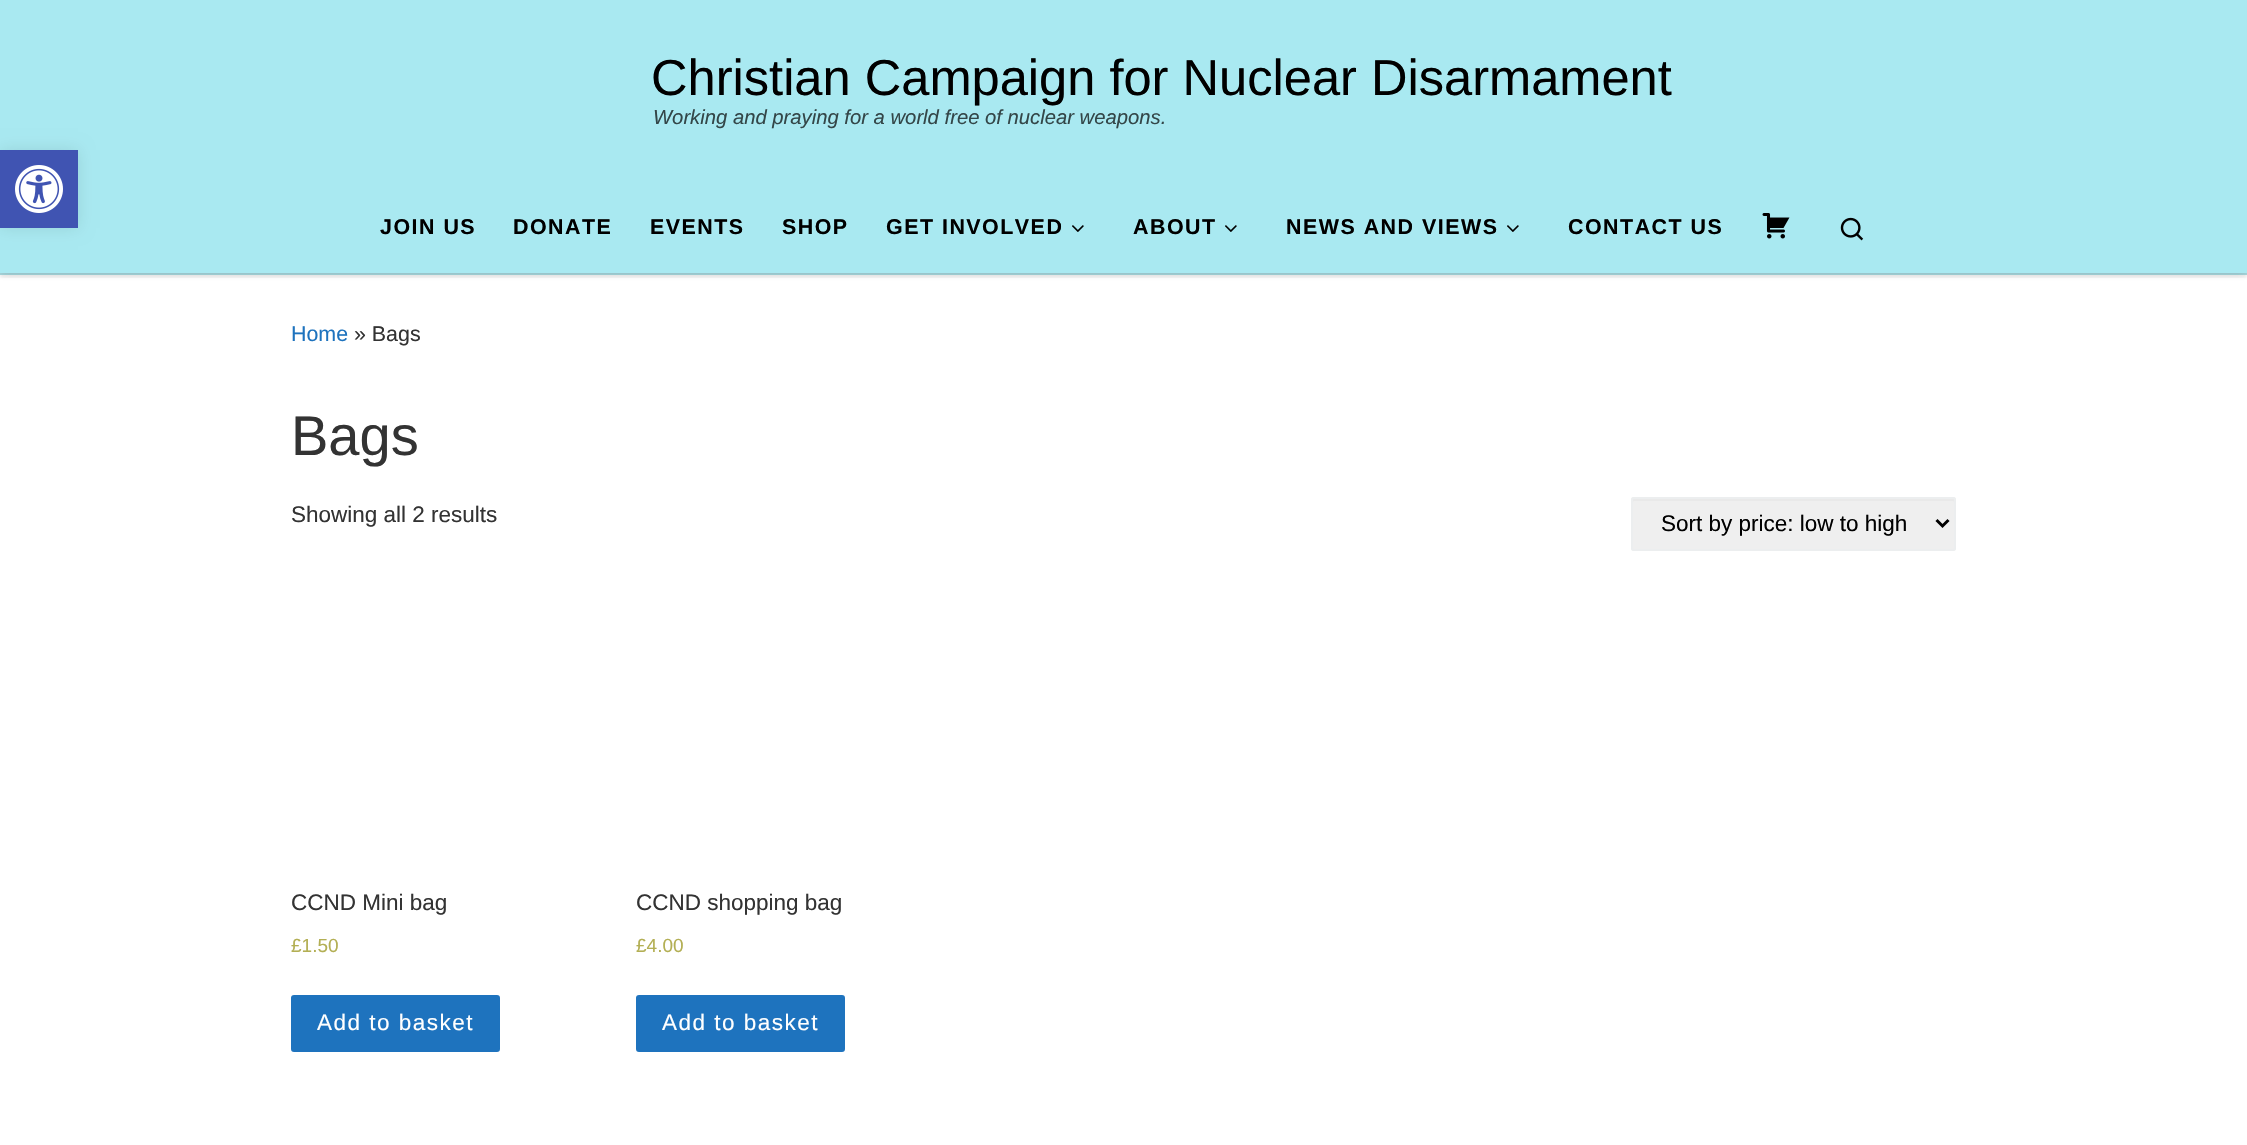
#include "include/core/SkBlurTypes.h"
#include "include/core/SkCanvas.h"
#include "include/core/SkData.h"
#include "include/core/SkFont.h"
#include "include/core/SkFontMgr.h"
#include "include/core/SkImage.h"
#include "include/core/SkMaskFilter.h"
#include "include/core/SkPaint.h"
#include "include/core/SkPathBuilder.h"
#include "include/core/SkTextBlob.h"
#include "include/effects/SkDashPathEffect.h"
#include "include/effects/SkGradientShader.h"
#include "include/utils/SkParsePath.h"

extern sk_sp<SkFontMgr> fontMgr;

void draw(SkCanvas* canvas) {
  SkPaint p;
  p.setAntiAlias(true);
  auto spacedText = [&](const char* s, float x, float y, const SkFont& font, const SkPaint& ink, float letter, float word) {
    std::vector<SkGlyphID> glyphs(font.countText(s, strlen(s), SkTextEncoding::kUTF8));
    std::vector<float> xs(glyphs.size());
    font.textToGlyphs(s, strlen(s), SkTextEncoding::kUTF8, glyphs);
    font.getXPos(glyphs, xs, x);
    float extra = 0;
    for (size_t i = 0; i < glyphs.size(); i++) {
      xs[i] += extra;
      extra += letter + word * (glyphs[i] == font.unicharToGlyph(' '));
    }
    canvas->drawTextBlob(SkTextBlob::MakeFromPosHGlyphs(glyphs, xs, y, font), 0, 0, ink);
  };
  canvas->clear(SK_ColorWHITE);
  p.setColor(SkColorSetARGB(20, 102, 102, 102));
  p.setMaskFilter(SkMaskFilter::MakeBlur(kNormal_SkBlurStyle, 1.5f));
  canvas->drawRect(SkRect::MakeLTRB(0, 3, 2247, 278), p);
  p.setMaskFilter(nullptr);
  p.setColor(SkColorSetRGB(169, 233, 241));
  canvas->drawRect(SkRect::MakeLTRB(0, 0, 2247, 273), p);
  p.setColor(SkColorSetARGB(26, 0, 0, 0));
  p.setMaskFilter(SkMaskFilter::MakeBlur(kNormal_SkBlurStyle, 7.5f));
  canvas->drawRect(SkRect::MakeLTRB(0, 150, 78, 228), p);
  p.setMaskFilter(nullptr);
  p.setColor(SkColorSetRGB(169, 218, 224));
  canvas->drawRect(SkRect::MakeLTRB(0, 273, 2247, 275), p);
  canvas->save();
  canvas->clipRect(SkRect::MakeLTRB(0, 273, 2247, 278));
  p.setColor(SkColorSetARGB(51, 0, 0, 0));
  p.setMaskFilter(SkMaskFilter::MakeBlur(kNormal_SkBlurStyle, 4));
  canvas->drawRect(SkRect::MakeLTRB(0, 0, 2247, 273), p);
  p.setMaskFilter(nullptr);
  canvas->restore();
  p.setColor(SkColorSetRGB(64, 84, 178));
  canvas->drawRect(SkRect::MakeLTRB(0, 150, 78, 228), p);
  canvas->drawImageRect(SkImages::DeferredFromEncodedData(SkData::MakeFromFileName("images/1.png")), SkRect::MakeLTRB(15, 165, 63, 213), SkSamplingOptions());
  canvas->drawImageRect(SkImages::DeferredFromEncodedData(SkData::MakeFromFileName("images/2.png")), SkRect::MakeLTRB(1072, 225, 1084, 232), SkSamplingOptions());
  canvas->drawImageRect(SkImages::DeferredFromEncodedData(SkData::MakeFromFileName("images/2.png")), SkRect::MakeLTRB(1225, 225, 1237, 232), SkSamplingOptions());
  canvas->drawImageRect(SkImages::DeferredFromEncodedData(SkData::MakeFromFileName("images/2.png")), SkRect::MakeLTRB(1507, 225, 1519, 232), SkSamplingOptions());
  canvas->drawImageRect(SkImages::DeferredFromEncodedData(SkData::MakeFromFileName("images/3.png")), SkRect::MakeLTRB(1762, 213, 1790, 239), SkSamplingOptions());
  canvas->drawImageRect(SkImages::DeferredFromEncodedData(SkData::MakeFromFileName("images/4.png")), SkRect::MakeLTRB(1840, 217, 1864, 241), SkSamplingOptions());
  p.setColor(SkColorSetRGB(239, 239, 239));
  canvas->drawRoundRect(SkRect::MakeLTRB(1631, 497, 1956, 551), 3, 3, p);
  p.setColor(SkColorSetRGB(233, 233, 233));
  canvas->drawPath(SkPathBuilder().moveTo(1634, 501).lineTo(1953, 501).cubicTo(1954, 501, 1954, 502, 1954, 502).lineTo(1954, 549).lineTo(1955, 548).lineTo(1955, 500).cubicTo(1955, 499, 1954, 498, 1954, 498).lineTo(1634, 498).cubicTo(1631, 498, 1632, 501, 1632, 502).close().detach(), p);
  p.setStyle(SkPaint::kStroke_Style);
  p.setStrokeWidth(2);
  p.setColor(SkColorSetRGB(236, 238, 239));
  canvas->drawRoundRect(SkRect::MakeLTRB(1632, 498, 1955, 550), 2, 2, p);
  p.setStrokeWidth(3);
  p.setColor(SK_ColorBLACK);
  canvas->drawPath(SkPathBuilder().moveTo(1936.5f, 520).lineTo(1942.5f, 526).lineTo(1948.5f, 520).detach(), p);
  p.setStyle(SkPaint::kFill_Style);
  p.setColor(SkColorSetRGB(30, 115, 190));
  canvas->drawRoundRect(SkRect::MakeLTRB(292.5f, 996.5f, 498.5f, 1050.5f), 1.5f, 1.5f, p);
  p.setStyle(SkPaint::kStroke_Style);
  canvas->drawRoundRect(SkRect::MakeLTRB(292.5f, 996.5f, 498.5f, 1050.5f), 1.5f, 1.5f, p);
  p.setStyle(SkPaint::kFill_Style);
  canvas->drawRoundRect(SkRect::MakeLTRB(637.5f, 996.5f, 843.5f, 1050.5f), 1.5f, 1.5f, p);
  p.setStyle(SkPaint::kStroke_Style);
  canvas->drawRoundRect(SkRect::MakeLTRB(637.5f, 996.5f, 843.5f, 1050.5f), 1.5f, 1.5f, p);
  SkFont font1(fontMgr->matchFamilyStyle("Liberation Sans", SkFontStyle::Normal()), 50.6f);
  font1.setSubpixel(true);
  p.setStyle(SkPaint::kFill_Style);
  p.setColor(SK_ColorBLACK);
  canvas->drawString("Christian Campaign for Nuclear Disarmament", 651, 95, font1, p);
  SkFont font2(fontMgr->matchFamilyStyle("Liberation Sans", SkFontStyle::Italic()), 20.25f);
  font2.setSubpixel(true);
  p.setColor(SkColorSetRGB(51, 70, 72));
  canvas->drawString("Working and praying for a world free of nuclear weapons.", 653, 124, font2, p);
  SkFont font3(fontMgr->matchFamilyStyle("Liberation Sans", SkFontStyle::Bold()), 21.4f);
  font3.setSubpixel(true);
  p.setColor(SK_ColorBLACK);
  spacedText("JOIN US", 380, 234, font3, p, 1.5f, 0);
  spacedText("DONATE", 513, 234, font3, p, 1.5f, 0);
  spacedText("EVENTS", 650, 234, font3, p, 1.5f, 0);
  spacedText("SHOP", 782, 234, font3, p, 1.5f, 0);
  spacedText("GET INVOLVED", 886, 234, font3, p, 1.5f, 0);
  spacedText("ABOUT", 1133, 234, font3, p, 1.5f, 0);
  spacedText("NEWS AND VIEWS", 1286, 234, font3, p, 1.5f, 0);
  spacedText("CONTACT US", 1568, 234, font3, p, 1.5f, 0);
  SkFont font4(fontMgr->matchFamilyStyle("Liberation Sans", SkFontStyle::Normal()), 21.4f);
  font4.setSubpixel(true);
  p.setColor(SkColorSetRGB(30, 115, 190));
  canvas->drawString("Home", 291, 341, font4, p);
  p.setColor(SkColorSetRGB(51, 51, 51));
  canvas->drawString("» Bags", 354, 341, font4, p);
  SkFont font5(fontMgr->matchFamilyStyle("Liberation Sans", SkFontStyle::Normal()), 56);
  font5.setSubpixel(true);
  canvas->drawString("Bags", 291, 455, font5, p);
  SkFont font6(fontMgr->matchFamilyStyle("Liberation Sans", SkFontStyle::Normal()), 22.5f);
  font6.setSubpixel(true);
  canvas->drawString("Showing all 2 results", 291, 522, font6, p);
  p.setColor(SK_ColorBLACK);
  canvas->drawString("Sort by price: low to high", 1661, 531, font6, p);
  p.setColor(SkColorSetRGB(51, 51, 51));
  canvas->drawString("CCND Mini bag", 291, 910, font6, p);
  SkFont font7(fontMgr->matchFamilyStyle("Liberation Sans", SkFontStyle::Normal()), 19);
  font7.setSubpixel(true);
  p.setColor(SkColorSetRGB(179, 175, 84));
  canvas->drawString("£1.50", 291, 952, font7, p);
  p.setColor(SK_ColorWHITE);
  spacedText("Add to basket", 317, 1030, font6, p, 1.5f, 0);
  p.setColor(SkColorSetRGB(51, 51, 51));
  canvas->drawString("CCND shopping bag", 636, 910, font6, p);
  p.setColor(SkColorSetRGB(179, 175, 84));
  canvas->drawString("£4.00", 636, 952, font7, p);
  p.setColor(SK_ColorWHITE);
  spacedText("Add to basket", 662, 1030, font6, p, 1.5f, 0);
}
